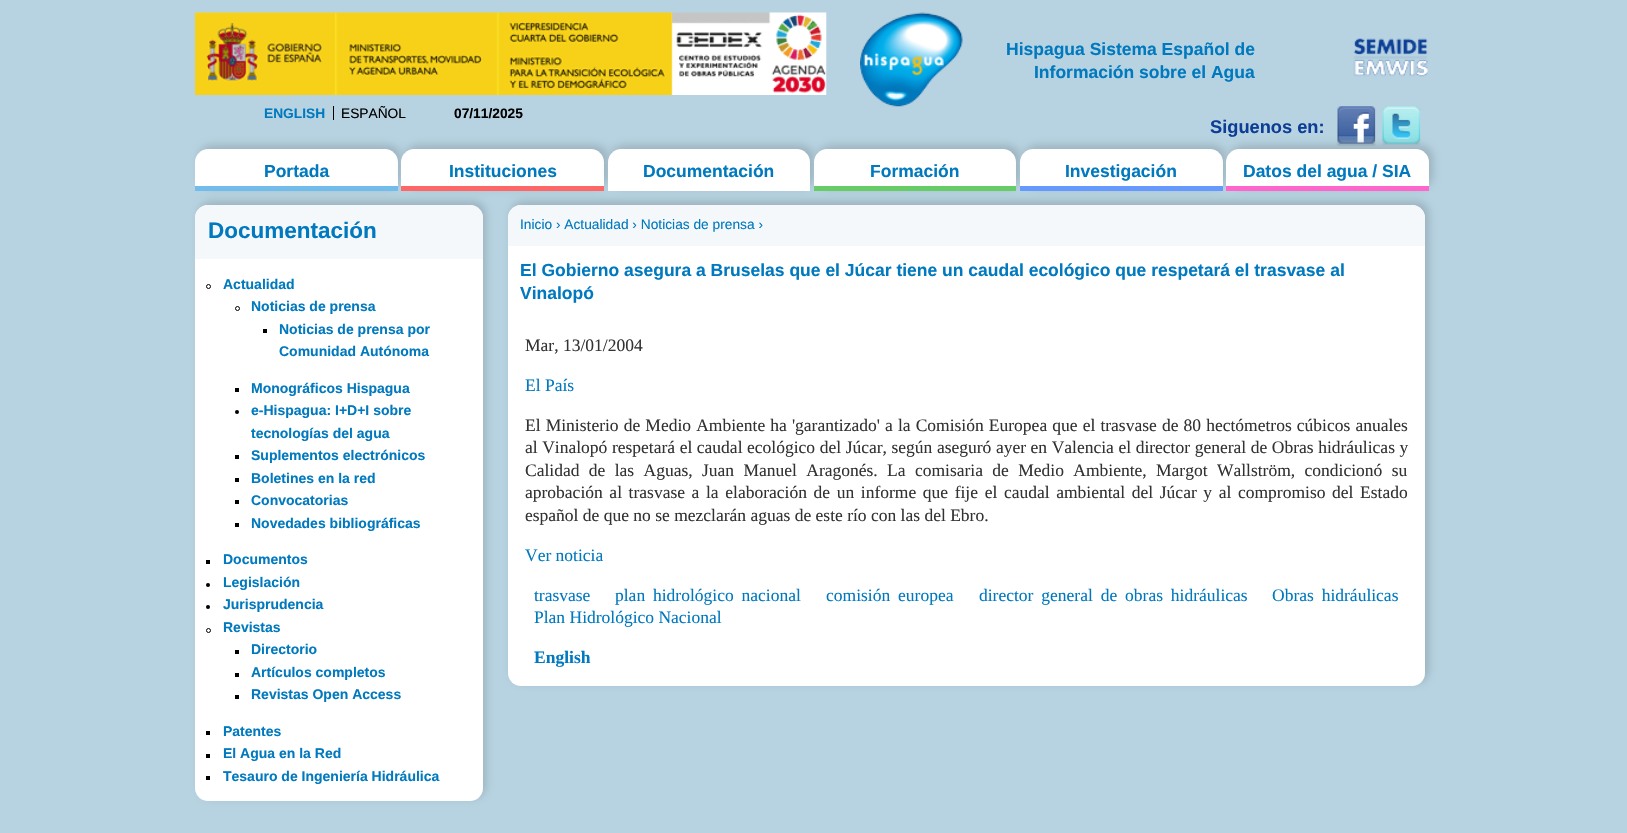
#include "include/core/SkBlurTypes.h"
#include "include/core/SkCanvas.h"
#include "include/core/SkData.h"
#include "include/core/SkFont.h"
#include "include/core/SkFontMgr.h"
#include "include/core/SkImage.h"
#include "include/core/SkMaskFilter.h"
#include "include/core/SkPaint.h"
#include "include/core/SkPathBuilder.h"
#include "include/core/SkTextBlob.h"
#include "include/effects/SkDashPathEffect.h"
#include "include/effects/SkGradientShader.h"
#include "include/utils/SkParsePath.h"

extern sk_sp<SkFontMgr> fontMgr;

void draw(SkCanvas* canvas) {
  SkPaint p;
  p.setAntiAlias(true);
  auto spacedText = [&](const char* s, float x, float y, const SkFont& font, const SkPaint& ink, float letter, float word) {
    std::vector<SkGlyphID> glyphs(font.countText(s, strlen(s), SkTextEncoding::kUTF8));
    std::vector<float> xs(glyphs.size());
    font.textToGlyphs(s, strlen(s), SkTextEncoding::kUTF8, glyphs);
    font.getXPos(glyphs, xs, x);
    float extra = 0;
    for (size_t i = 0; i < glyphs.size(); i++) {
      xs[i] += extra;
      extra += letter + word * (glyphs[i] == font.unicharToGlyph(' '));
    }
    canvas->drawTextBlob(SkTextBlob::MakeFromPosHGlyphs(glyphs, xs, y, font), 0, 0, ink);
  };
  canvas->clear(SkColorSetRGB(183, 211, 225));
  canvas->drawImageRect(SkImages::DeferredFromEncodedData(SkData::MakeFromFileName("images/1.png")), SkRect::MakeLTRB(195, 12, 827, 95), SkSamplingOptions());
  canvas->drawImageRect(SkImages::DeferredFromEncodedData(SkData::MakeFromFileName("images/2.png")), SkRect::MakeLTRB(860, 12, 963, 107), SkSamplingOptions());
  canvas->drawImageRect(SkImages::DeferredFromEncodedData(SkData::MakeFromFileName("images/3.png")), SkRect::MakeLTRB(1353, 38, 1428, 77), SkSamplingOptions());
  p.setColor(SK_ColorBLACK);
  canvas->drawRect(SkRect::MakeLTRB(333, 106, 334, 120), p);
  canvas->drawImageRect(SkImages::DeferredFromEncodedData(SkData::MakeFromFileName("images/4.png")), SkRect::MakeLTRB(1336, 106, 1376, 147), SkSamplingOptions());
  canvas->drawImageRect(SkImages::DeferredFromEncodedData(SkData::MakeFromFileName("images/5.png")), SkRect::MakeLTRB(1382, 106, 1421, 146), SkSamplingOptions());
  p.setColor(SkColorSetRGB(156, 179, 191));
  p.setMaskFilter(SkMaskFilter::MakeBlur(kNormal_SkBlurStyle, 4.5f));
  canvas->drawRoundRect(SkRect::MakeLTRB(199, 145, 401, 188), 13, 13, p);
  p.setMaskFilter(nullptr);
  p.setColor(SK_ColorWHITE);
  canvas->drawPath(SkPathBuilder().moveTo(208, 149).lineTo(385, 149).cubicTo(392, 149, 398, 155, 398, 162).lineTo(398, 191).lineTo(195, 191).lineTo(195, 162).cubicTo(195, 155, 201, 149, 208, 149).close().detach(), p);
  p.setColor(SkColorSetRGB(114, 188, 235));
  canvas->drawRect(SkRect::MakeLTRB(195, 186, 398, 191), p);
  p.setColor(SkColorSetRGB(156, 179, 191));
  p.setMaskFilter(SkMaskFilter::MakeBlur(kNormal_SkBlurStyle, 4.5f));
  canvas->drawRoundRect(SkRect::MakeLTRB(405, 145, 608, 188), 13, 13, p);
  p.setMaskFilter(nullptr);
  p.setMaskFilter(SkMaskFilter::MakeBlur(kNormal_SkBlurStyle, 4.5f));
  canvas->drawRoundRect(SkRect::MakeLTRB(511, 201, 1429, 683), 13, 13, p);
  p.setMaskFilter(nullptr);
  p.setColor(SK_ColorWHITE);
  canvas->drawPath(SkPathBuilder().moveTo(414, 149).lineTo(591, 149).cubicTo(598, 149, 604, 155, 604, 162).lineTo(604, 191).lineTo(401, 191).lineTo(401, 162).cubicTo(401, 155, 407, 149, 414, 149).close().detach(), p);
  p.setColor(SkColorSetRGB(255, 103, 102));
  canvas->drawRect(SkRect::MakeLTRB(401, 186, 604, 191), p);
  p.setColor(SkColorSetRGB(156, 179, 191));
  p.setMaskFilter(SkMaskFilter::MakeBlur(kNormal_SkBlurStyle, 4.5f));
  canvas->drawRoundRect(SkRect::MakeLTRB(611, 145, 814, 188), 13, 13, p);
  p.setMaskFilter(nullptr);
  p.setColor(SK_ColorWHITE);
  canvas->drawPath(SkPathBuilder().moveTo(621, 149).lineTo(797, 149).cubicTo(804, 149, 810, 155, 810, 162).lineTo(810, 191).lineTo(608, 191).lineTo(608, 162).cubicTo(608, 155, 614, 149, 621, 149).close().detach(), p);
  p.setColor(SkColorSetRGB(156, 179, 191));
  p.setMaskFilter(SkMaskFilter::MakeBlur(kNormal_SkBlurStyle, 4.5f));
  canvas->drawRoundRect(SkRect::MakeLTRB(818, 145, 1020, 188), 13, 13, p);
  p.setMaskFilter(nullptr);
  p.setColor(SK_ColorWHITE);
  canvas->drawPath(SkPathBuilder().moveTo(827, 149).lineTo(1003, 149).cubicTo(1010, 149, 1016, 155, 1016, 162).lineTo(1016, 191).lineTo(814, 191).lineTo(814, 162).cubicTo(814, 155, 820, 149, 827, 149).close().detach(), p);
  p.setColor(SkColorSetRGB(102, 204, 102));
  canvas->drawRect(SkRect::MakeLTRB(814, 186, 1016, 191), p);
  p.setColor(SkColorSetRGB(156, 179, 191));
  p.setMaskFilter(SkMaskFilter::MakeBlur(kNormal_SkBlurStyle, 4.5f));
  canvas->drawRoundRect(SkRect::MakeLTRB(1024, 145, 1226, 188), 13, 13, p);
  p.setMaskFilter(nullptr);
  p.setColor(SK_ColorWHITE);
  canvas->drawPath(SkPathBuilder().moveTo(1033, 149).lineTo(1210, 149).cubicTo(1217, 149, 1223, 155, 1223, 162).lineTo(1223, 191).lineTo(1020, 191).lineTo(1020, 162).cubicTo(1020, 155, 1026, 149, 1033, 149).close().detach(), p);
  p.setColor(SkColorSetRGB(101, 153, 254));
  canvas->drawRect(SkRect::MakeLTRB(1020, 186, 1223, 191), p);
  p.setColor(SkColorSetRGB(156, 179, 191));
  p.setMaskFilter(SkMaskFilter::MakeBlur(kNormal_SkBlurStyle, 4.5f));
  canvas->drawRoundRect(SkRect::MakeLTRB(1230, 145, 1433, 188), 13, 13, p);
  p.setMaskFilter(nullptr);
  p.setColor(SK_ColorWHITE);
  canvas->drawPath(SkPathBuilder().moveTo(1239, 149).lineTo(1416, 149).cubicTo(1423, 149, 1429, 155, 1429, 162).lineTo(1429, 191).lineTo(1226, 191).lineTo(1226, 162).cubicTo(1226, 155, 1232, 149, 1239, 149).close().detach(), p);
  p.setColor(SkColorSetRGB(254, 102, 203));
  canvas->drawRect(SkRect::MakeLTRB(1226, 186, 1429, 191), p);
  p.setColor(SkColorSetRGB(156, 179, 191));
  p.setMaskFilter(SkMaskFilter::MakeBlur(kNormal_SkBlurStyle, 4.5f));
  canvas->drawRoundRect(SkRect::MakeLTRB(199, 201, 486, 798), 13, 13, p);
  p.setMaskFilter(nullptr);
  p.setColor(SK_ColorWHITE);
  canvas->drawRoundRect(SkRect::MakeLTRB(195, 205, 483, 801), 13, 13, p);
  p.setColor(SkColorSetRGB(244, 248, 251));
  canvas->drawPath(SkPathBuilder().moveTo(208, 205).lineTo(470, 205).cubicTo(477, 205, 483, 211, 483, 218).lineTo(483, 259).lineTo(195, 259).lineTo(195, 218).cubicTo(195, 211, 201, 205, 208, 205).close().detach(), p);
  p.setStyle(SkPaint::kStroke_Style);
  p.setStrokeWidth(1);
  p.setColor(SK_ColorBLACK);
  canvas->drawCircle(208.5f, 286.5f, 2, p);
  canvas->drawCircle(237.5f, 308.5f, 2, p);
  p.setStyle(SkPaint::kFill_Style);
  canvas->drawRect(SkRect::MakeLTRB(263, 329, 267, 333), p);
  canvas->drawRect(SkRect::MakeLTRB(235, 388, 239, 392), p);
  canvas->drawCircle(237, 412, 2, p);
  canvas->drawRect(SkRect::MakeLTRB(235, 455, 239, 459), p);
  canvas->drawRect(SkRect::MakeLTRB(235, 478, 239, 482), p);
  canvas->drawRect(SkRect::MakeLTRB(235, 500, 239, 504), p);
  canvas->drawRect(SkRect::MakeLTRB(235, 523, 239, 527), p);
  canvas->drawRect(SkRect::MakeLTRB(206, 560, 210, 564), p);
  canvas->drawCircle(208, 585, 2, p);
  canvas->drawCircle(208, 607, 2, p);
  p.setStyle(SkPaint::kStroke_Style);
  canvas->drawCircle(208.5f, 630.5f, 2, p);
  p.setStyle(SkPaint::kFill_Style);
  canvas->drawRect(SkRect::MakeLTRB(235, 650, 239, 654), p);
  canvas->drawRect(SkRect::MakeLTRB(235, 673, 239, 677), p);
  canvas->drawRect(SkRect::MakeLTRB(235, 695, 239, 699), p);
  canvas->drawRect(SkRect::MakeLTRB(206, 731, 210, 735), p);
  canvas->drawRect(SkRect::MakeLTRB(206, 754, 210, 758), p);
  canvas->drawRect(SkRect::MakeLTRB(206, 776, 210, 780), p);
  p.setColor(SK_ColorWHITE);
  canvas->drawRoundRect(SkRect::MakeLTRB(508, 205, 1425, 686), 13, 13, p);
  p.setColor(SkColorSetRGB(244, 248, 251));
  canvas->drawPath(SkPathBuilder().moveTo(521, 205).lineTo(1412, 205).cubicTo(1419, 205, 1425, 211, 1425, 218).lineTo(1425, 246).lineTo(508, 246).lineTo(508, 218).cubicTo(508, 211, 514, 205, 521, 205).close().detach(), p);
  SkFont font1(fontMgr->matchFamilyStyle("Liberation Sans", SkFontStyle::Bold()), 17.5f);
  font1.setSubpixel(true);
  p.setColor(SkColorSetRGB(0, 121, 190));
  canvas->drawString("Hispagua Sistema Español de", 1006, 55, font1, p);
  canvas->drawString("Información sobre el Agua", 1034, 78, font1, p);
  SkFont font2(fontMgr->matchFamilyStyle("Liberation Sans", SkFontStyle::Bold()), 13.75f);
  font2.setSubpixel(true);
  canvas->drawString("ENGLISH", 264, 118, font2, p);
  SkFont font3(fontMgr->matchFamilyStyle("Liberation Sans", SkFontStyle::Normal()), 13.75f);
  font3.setSubpixel(true);
  p.setColor(SK_ColorBLACK);
  canvas->drawString("ESPAÑOL", 341, 118, font3, p);
  canvas->drawString("07/11/2025", 454, 118, font2, p);
  SkFont font4(fontMgr->matchFamilyStyle("Liberation Sans", SkFontStyle::Bold()), 18.25f);
  font4.setSubpixel(true);
  p.setColor(SkColorSetRGB(13, 62, 149));
  canvas->drawString("Siguenos en:", 1210, 133, font4, p);
  p.setColor(SkColorSetRGB(0, 121, 190));
  canvas->drawString("Portada", 264, 177, font1, p);
  canvas->drawString("Instituciones", 449, 177, font1, p);
  canvas->drawString("Documentación", 643, 177, font1, p);
  canvas->drawString("Formación", 870, 177, font1, p);
  canvas->drawString("Investigación", 1065, 177, font1, p);
  canvas->drawString("Datos del agua / SIA", 1243, 177, font1, p);
  SkFont font5(fontMgr->matchFamilyStyle("Liberation Sans", SkFontStyle::Bold()), 22.5f);
  font5.setSubpixel(true);
  canvas->drawString("Documentación", 208, 238, font5, p);
  SkFont font6(fontMgr->matchFamilyStyle("Liberation Sans", SkFontStyle::Bold()), 14);
  font6.setSubpixel(true);
  canvas->drawString("Actualidad", 223, 289, font6, p);
  canvas->drawString("Noticias de prensa", 251, 311, font6, p);
  canvas->drawString("Noticias de prensa por", 279, 334, font6, p);
  canvas->drawString("Comunidad Autónoma", 279, 356, font6, p);
  canvas->drawString("Monográficos Hispagua", 251, 393, font6, p);
  canvas->drawString("e-Hispagua: I+D+I sobre", 251, 415, font6, p);
  canvas->drawString("tecnologías del agua", 251, 438, font6, p);
  canvas->drawString("Suplementos electrónicos", 251, 460, font6, p);
  canvas->drawString("Boletines en la red", 251, 483, font6, p);
  canvas->drawString("Convocatorias", 251, 505, font6, p);
  canvas->drawString("Novedades bibliográficas", 251, 528, font6, p);
  canvas->drawString("Documentos", 223, 564, font6, p);
  canvas->drawString("Legislación", 223, 587, font6, p);
  canvas->drawString("Jurisprudencia", 223, 609, font6, p);
  canvas->drawString("Revistas", 223, 632, font6, p);
  canvas->drawString("Directorio", 251, 654, font6, p);
  canvas->drawString("Artículos completos", 251, 677, font6, p);
  canvas->drawString("Revistas Open Access", 251, 699, font6, p);
  canvas->drawString("Patentes", 223, 736, font6, p);
  canvas->drawString("El Agua en la Red", 223, 758, font6, p);
  canvas->drawString("Tesauro de Ingeniería Hidráulica", 223, 781, font6, p);
  canvas->drawString("Inicio › Actualidad › Noticias de prensa ›", 520, 229, font3, p);
  canvas->drawString("El Gobierno asegura a Bruselas que el Júcar tiene un caudal ecológico que respetará el trasvase al", 520, 276, font1, p);
  canvas->drawString("Vinalopó", 520, 299, font1, p);
  SkFont font7(fontMgr->matchFamilyStyle("Liberation Serif", SkFontStyle::Normal()), 17.5f);
  font7.setSubpixel(true);
  p.setColor(SkColorSetRGB(51, 51, 51));
  canvas->drawString("Mar, 13/01/2004", 525, 351, font7, p);
  p.setColor(SkColorSetRGB(0, 121, 190));
  canvas->drawString("El País", 525, 391, font7, p);
  p.setColor(SkColorSetRGB(51, 51, 51));
  spacedText("El Ministerio de Medio Ambiente ha 'garantizado' a la Comisión Europea que el trasvase de 80 hectómetros cúbicos anuales", 525, 431, font7, p, 0, 0.75f);
  spacedText("al Vinalopó respetará el caudal ecológico del Júcar, según aseguró ayer en Valencia el director general de Obras hidráulicas y", 525, 453, font7, p, 0, 0.2f);
  spacedText("Calidad de las Aguas, Juan Manuel Aragonés. La comisaria de Medio Ambiente, Margot Wallström, condicionó su", 525, 476, font7, p, 0, 5);
  spacedText("aprobación al trasvase a la elaboración de un informe que fije el caudal ambiental del Júcar y al compromiso del Estado", 525, 498, font7, p, 0, 2.25f);
  canvas->drawString("español de que no se mezclarán aguas de este río con las del Ebro.", 525, 521, font7, p);
  p.setColor(SkColorSetRGB(0, 121, 190));
  canvas->drawString("Ver noticia", 525, 561, font7, p);
  canvas->drawString("trasvase", 534, 601, font7, p);
  spacedText("plan hidrológico nacional", 615, 601, font7, p, 0, 3.5f);
  spacedText("comisión europea", 826, 601, font7, p, 0, 3.5f);
  spacedText("director general de obras hidráulicas", 979, 601, font7, p, 0, 3.5f);
  spacedText("Obras hidráulicas", 1272, 601, font7, p, 0, 3.5f);
  canvas->drawString("Plan Hidrológico Nacional", 534, 623, font7, p);
  SkFont font8(fontMgr->matchFamilyStyle("Liberation Serif", SkFontStyle::Bold()), 17.5f);
  font8.setSubpixel(true);
  canvas->drawString("English", 534, 663, font8, p);
}
